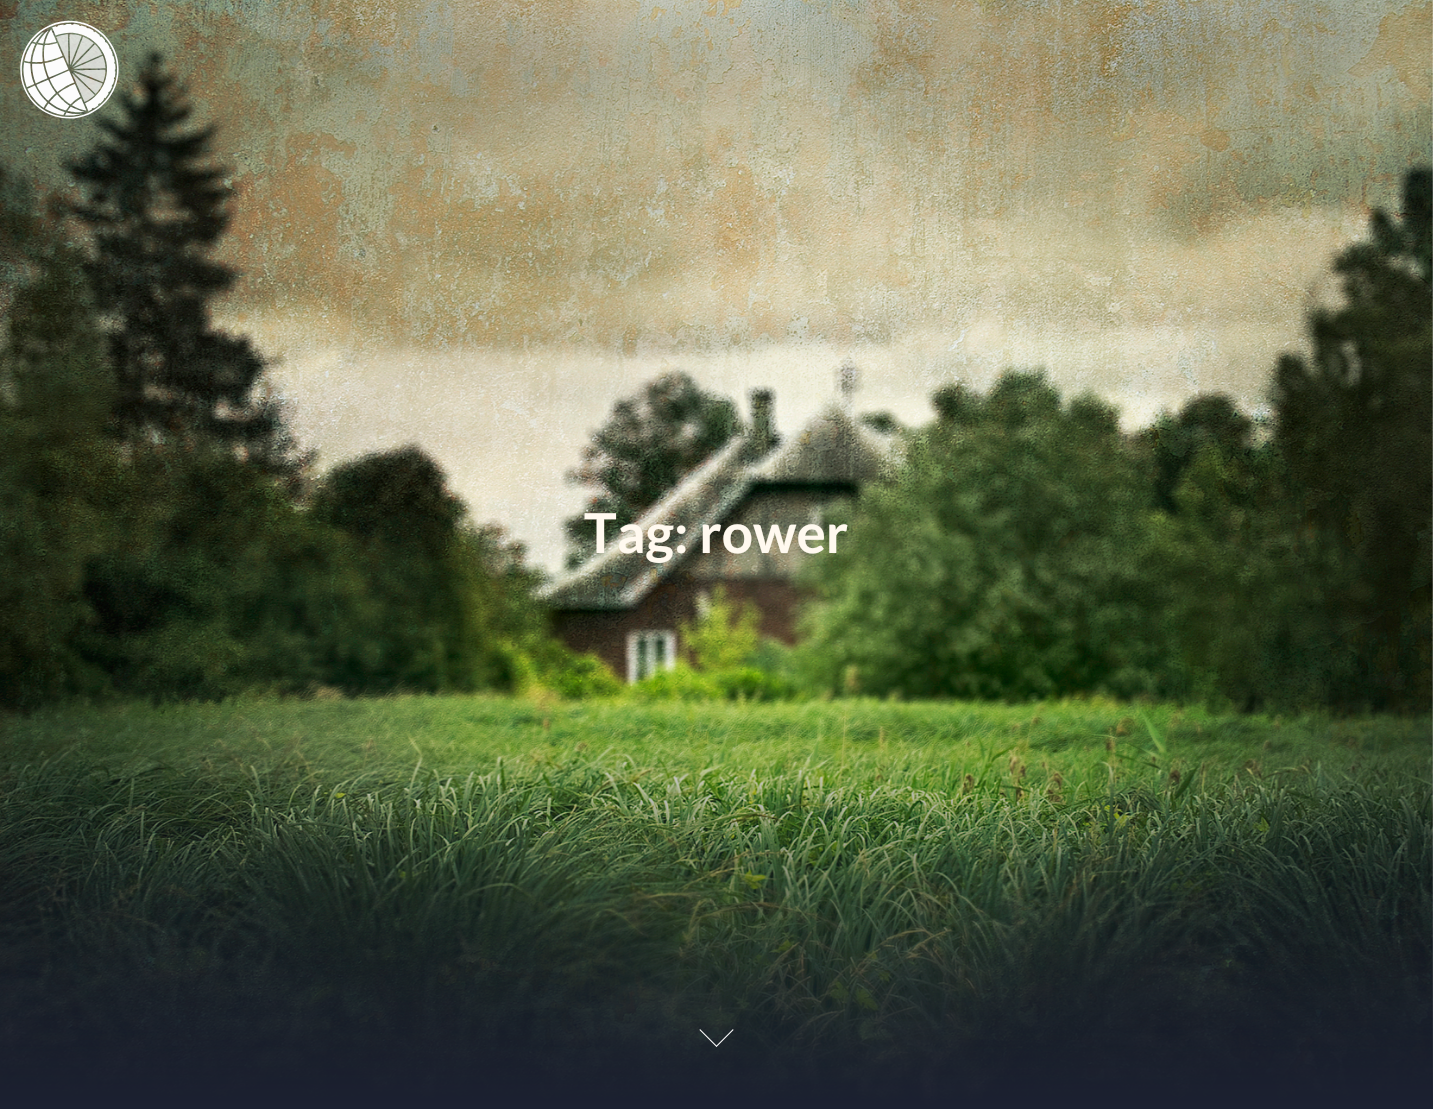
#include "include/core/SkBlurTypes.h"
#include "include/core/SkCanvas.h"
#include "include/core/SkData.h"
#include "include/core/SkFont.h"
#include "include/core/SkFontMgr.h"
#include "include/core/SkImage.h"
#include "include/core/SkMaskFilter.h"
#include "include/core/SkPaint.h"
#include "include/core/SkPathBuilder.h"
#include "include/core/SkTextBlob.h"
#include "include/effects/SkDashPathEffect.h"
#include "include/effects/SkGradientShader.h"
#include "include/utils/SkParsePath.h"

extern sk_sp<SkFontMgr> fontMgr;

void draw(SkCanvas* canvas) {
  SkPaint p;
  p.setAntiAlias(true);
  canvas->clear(SK_ColorWHITE);
  canvas->drawImageRect(SkImages::DeferredFromEncodedData(SkData::MakeFromFileName("images/1.png")), SkRect::MakeLTRB(0, 0, 1433, 1106), SkSamplingOptions());
  canvas->drawImageRect(SkImages::DeferredFromEncodedData(SkData::MakeFromFileName("images/2.png")), SkRect::MakeLTRB(20, 20, 119, 119), SkSamplingOptions());
  {
    const SkColor colors[] = {SkColorSetARGB(0, 27, 32, 48), SkColorSetRGB(27, 32, 48)};
    const float stops[] = {0, 1};
    const SkPoint ends[] = {{717, 665}, {717, 1109}};
    p.setShader(SkGradientShader::MakeLinear(ends, colors, stops, 2, SkTileMode::kClamp));
    p.setAlpha(255);
  }
  canvas->drawRect(SkRect::MakeLTRB(0, 675, 1433, 1109), p);
  p.setShader(nullptr);
  p.setColor(SK_ColorWHITE);
  canvas->drawPath(SkPathBuilder().moveTo(716, 1046).lineTo(733, 1029).lineTo(733.5f, 1030).lineTo(716.5f, 1047).close().detach(), p);
  canvas->drawPath(SkPathBuilder().moveTo(699.5f, 1030).lineTo(700, 1029).lineTo(717, 1046).lineTo(716.5f, 1047).close().detach(), p);
  SkFont font1(fontMgr->matchFamilyStyle("Lato", SkFontStyle::Bold()), 55);
  font1.setSubpixel(true);
  p.setColor(SkColorSetRGB(255, 249, 239));
  canvas->drawString("Tag: rower", 584, 553, font1, p);
}
